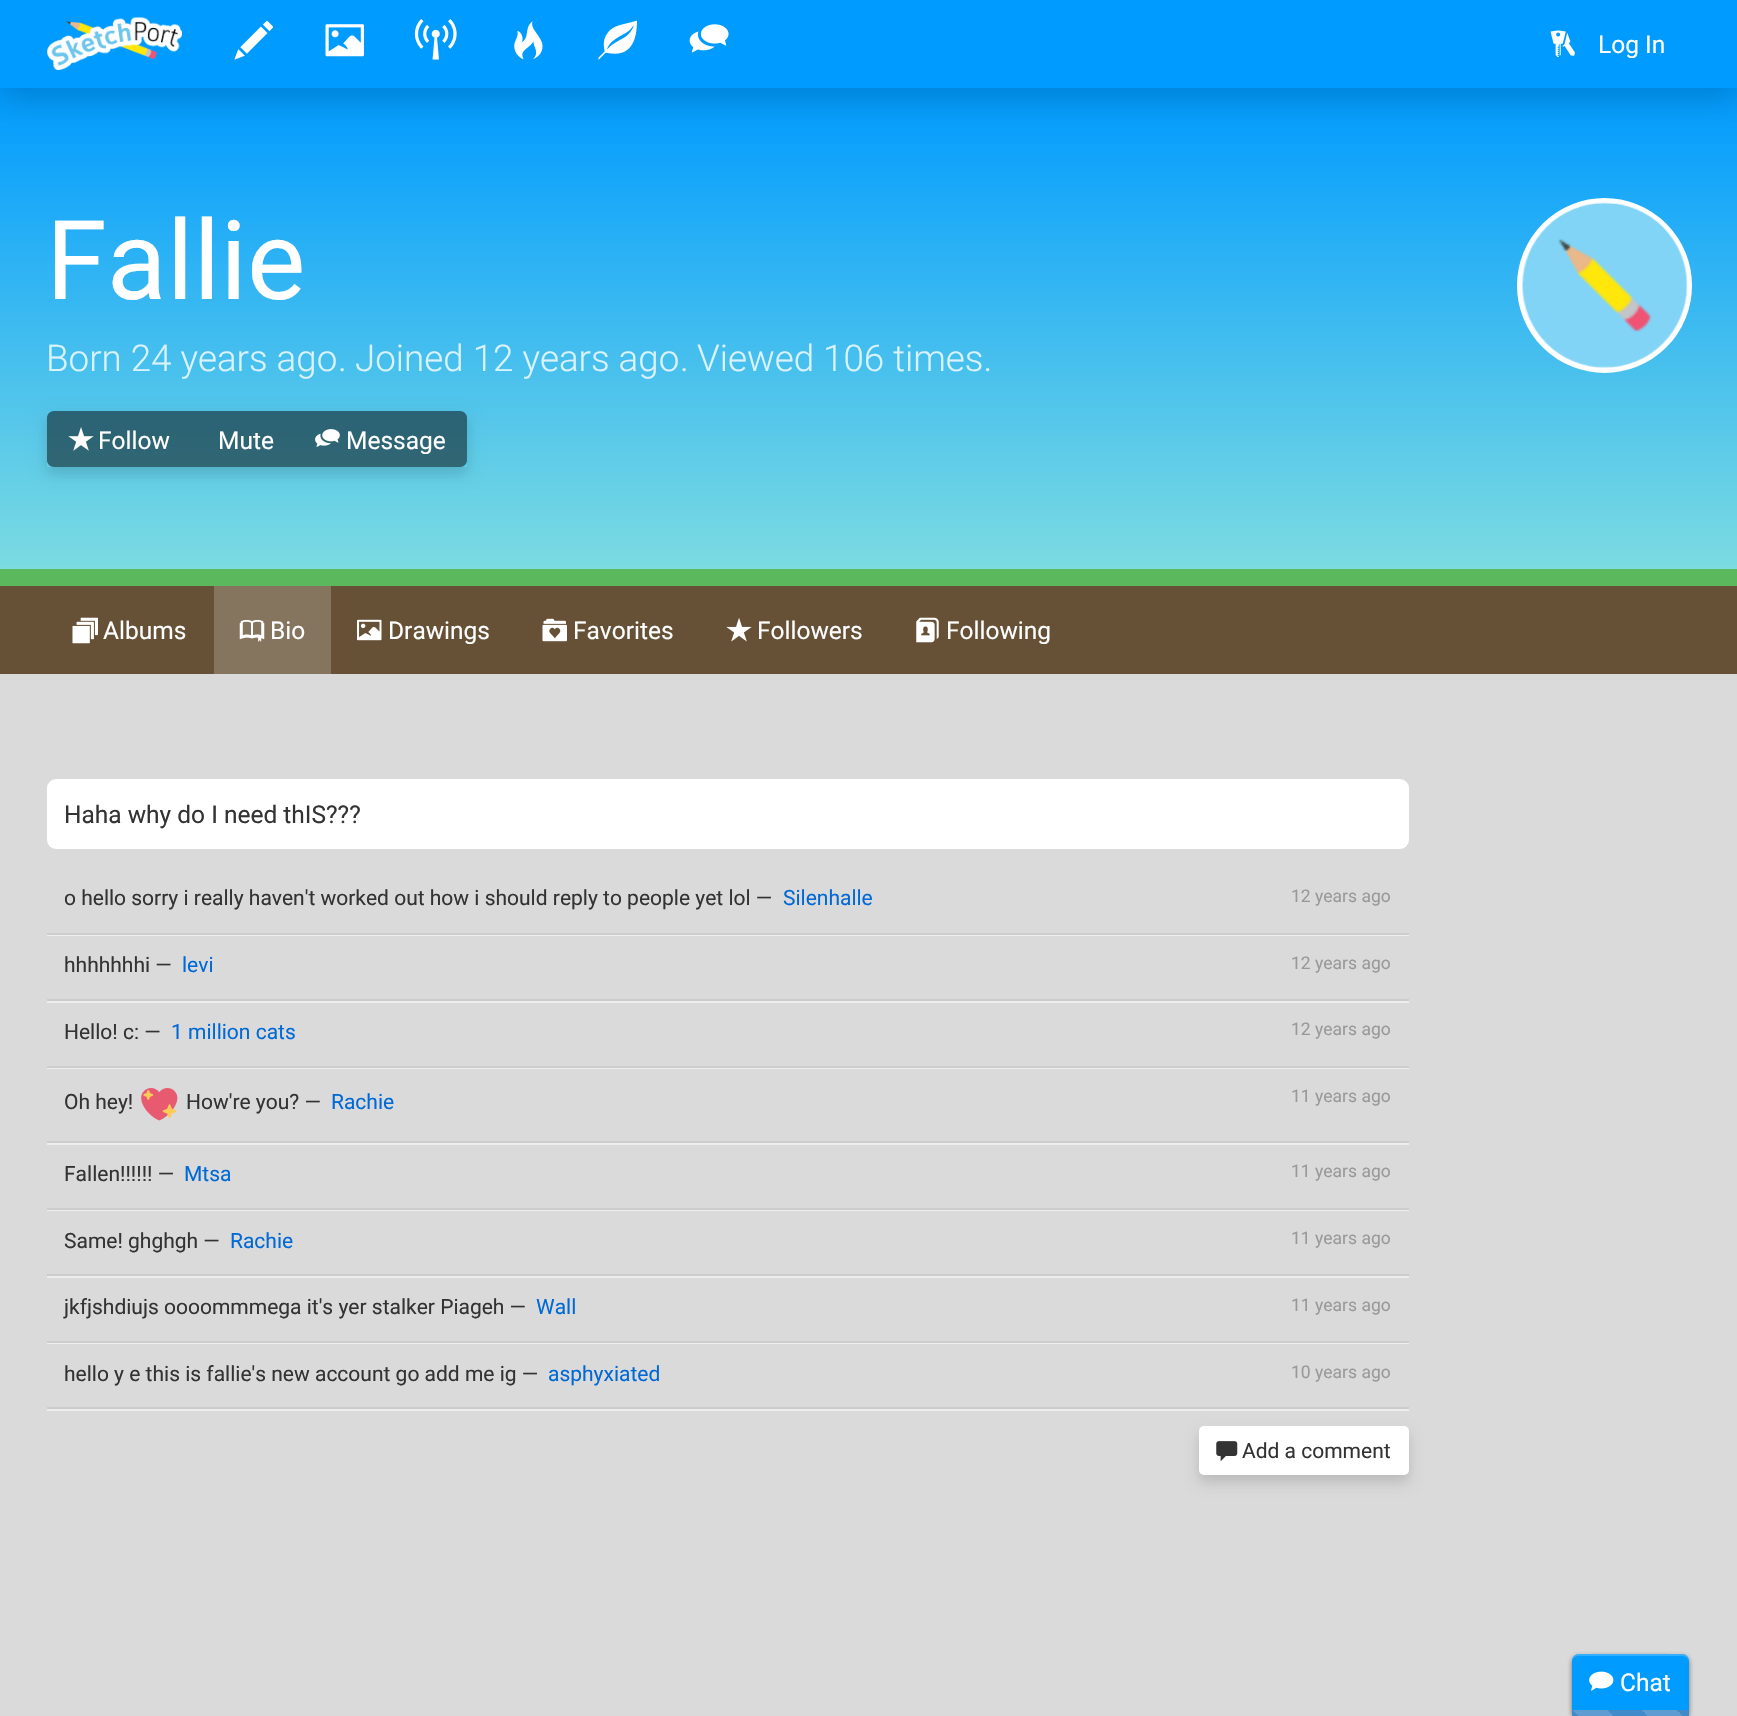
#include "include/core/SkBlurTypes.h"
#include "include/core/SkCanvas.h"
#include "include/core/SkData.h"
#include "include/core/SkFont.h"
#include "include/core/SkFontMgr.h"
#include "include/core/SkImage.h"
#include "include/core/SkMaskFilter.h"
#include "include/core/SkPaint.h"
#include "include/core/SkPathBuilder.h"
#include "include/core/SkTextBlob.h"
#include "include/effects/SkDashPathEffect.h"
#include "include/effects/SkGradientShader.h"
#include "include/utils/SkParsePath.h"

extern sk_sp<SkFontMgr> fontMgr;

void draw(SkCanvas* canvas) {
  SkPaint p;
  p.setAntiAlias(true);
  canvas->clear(SkColorSetRGB(218, 218, 218));
  {
    const SkColor colors[] = {SkColorSetRGB(0, 155, 255), SkColorSetRGB(124, 219, 225)};
    const float stops[] = {0, 1};
    const SkPoint ends[] = {{869, 87}, {869, 569}};
    p.setShader(SkGradientShader::MakeLinear(ends, colors, stops, 2, SkTileMode::kClamp));
    p.setAlpha(255);
  }
  canvas->drawRect(SkRect::MakeLTRB(0, 88, 1737, 569), p);
  p.setShader(nullptr);
  p.setColor(SkColorSetARGB(38, 0, 0, 0));
  p.setMaskFilter(SkMaskFilter::MakeBlur(kNormal_SkBlurStyle, 14));
  canvas->drawRect(SkRect::MakeLTRB(0, 14, 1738, 102), p);
  p.setMaskFilter(nullptr);
  p.setColor(SkColorSetRGB(0, 155, 255));
  canvas->drawRect(SkRect::MakeLTRB(0, 0, 1737, 88), p);
  canvas->drawImageRect(SkImages::DeferredFromEncodedData(SkData::MakeFromFileName("images/1.png")), SkRect::MakeLTRB(47, 17, 182, 70), SkSamplingOptions());
  canvas->drawImageRect(SkImages::DeferredFromEncodedData(SkData::MakeFromFileName("images/2.png")), SkRect::MakeLTRB(234, 21, 273, 60), SkSamplingOptions());
  canvas->drawImageRect(SkImages::DeferredFromEncodedData(SkData::MakeFromFileName("images/3.png")), SkRect::MakeLTRB(325, 24, 364, 57), SkSamplingOptions());
  canvas->drawImageRect(SkImages::DeferredFromEncodedData(SkData::MakeFromFileName("images/4.png")), SkRect::MakeLTRB(414, 19, 457, 60), SkSamplingOptions());
  canvas->drawImageRect(SkImages::DeferredFromEncodedData(SkData::MakeFromFileName("images/5.png")), SkRect::MakeLTRB(514, 21, 543, 60), SkSamplingOptions());
  canvas->drawImageRect(SkImages::DeferredFromEncodedData(SkData::MakeFromFileName("images/6.png")), SkRect::MakeLTRB(598, 20, 637, 60), SkSamplingOptions());
  canvas->drawImageRect(SkImages::DeferredFromEncodedData(SkData::MakeFromFileName("images/7.png")), SkRect::MakeLTRB(689, 24, 729, 53), SkSamplingOptions());
  canvas->drawImageRect(SkImages::DeferredFromEncodedData(SkData::MakeFromFileName("images/8.png")), SkRect::MakeLTRB(1550, 30, 1575, 57), SkSamplingOptions());
  p.setColor(SK_ColorWHITE);
  canvas->drawCircle(1604.5f, 285.5f, 86.5f, p);
  p.setStyle(SkPaint::kStroke_Style);
  p.setStrokeWidth(2);
  canvas->drawCircle(1604.5f, 285.5f, 86.5f, p);
  canvas->drawImageRect(SkImages::DeferredFromEncodedData(SkData::MakeFromFileName("images/9.png")), SkRect::MakeLTRB(1522, 202, 1688, 368), SkSamplingOptions());
  canvas->save();
  canvas->clipPath(SkPathBuilder(SkPathFillType::kEvenOdd).moveTo(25, 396).lineTo(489, 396).lineTo(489, 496).lineTo(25, 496).close().moveTo(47, 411).lineTo(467, 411).lineTo(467, 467).lineTo(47, 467).close().detach(), true);
  p.setStyle(SkPaint::kFill_Style);
  p.setColor(SkColorSetARGB(38, 0, 0, 0));
  p.setMaskFilter(SkMaskFilter::MakeBlur(kNormal_SkBlurStyle, 7));
  canvas->drawRect(SkRect::MakeLTRB(47, 418, 467, 474), p);
  p.setMaskFilter(nullptr);
  canvas->restore();
  p.setColor(SkColorSetARGB(128, 0, 0, 0));
  canvas->drawPath(SkPathBuilder().moveTo(54, 411).lineTo(191, 411).lineTo(191, 467).lineTo(54, 467).cubicTo(50, 467, 47, 464, 47, 460).lineTo(47, 418).cubicTo(47, 414, 50, 411, 54, 411).close().detach(), p);
  canvas->drawImageRect(SkImages::DeferredFromEncodedData(SkData::MakeFromFileName("images/10.png")), SkRect::MakeLTRB(68, 427, 94, 451), SkSamplingOptions());
  canvas->drawRect(SkRect::MakeLTRB(191, 411, 294, 467), p);
  canvas->drawPath(SkPathBuilder().moveTo(294, 411).lineTo(460, 411).cubicTo(464, 411, 467, 414, 467, 418).lineTo(467, 460).cubicTo(467, 464, 464, 467, 460, 467).lineTo(294, 467).close().detach(), p);
  canvas->drawImageRect(SkImages::DeferredFromEncodedData(SkData::MakeFromFileName("images/11.png")), SkRect::MakeLTRB(315, 429, 340, 447), SkSamplingOptions());
  p.setColor(SkColorSetRGB(102, 81, 54));
  canvas->drawRect(SkRect::MakeLTRB(0, 586, 1737, 674), p);
  p.setColor(SkColorSetRGB(92, 184, 92));
  canvas->drawRect(SkRect::MakeLTRB(0, 569, 1737, 586), p);
  canvas->drawImageRect(SkImages::DeferredFromEncodedData(SkData::MakeFromFileName("images/12.png")), SkRect::MakeLTRB(72, 617, 98, 644), SkSamplingOptions());
  p.setColor(SkColorSetRGB(133, 116, 94));
  canvas->drawRect(SkRect::MakeLTRB(214, 586, 331, 674), p);
  canvas->drawImageRect(SkImages::DeferredFromEncodedData(SkData::MakeFromFileName("images/13.png")), SkRect::MakeLTRB(239, 619, 265, 642), SkSamplingOptions());
  canvas->drawImageRect(SkImages::DeferredFromEncodedData(SkData::MakeFromFileName("images/14.png")), SkRect::MakeLTRB(357, 619, 382, 641), SkSamplingOptions());
  canvas->drawImageRect(SkImages::DeferredFromEncodedData(SkData::MakeFromFileName("images/15.png")), SkRect::MakeLTRB(542, 618, 567, 642), SkSamplingOptions());
  canvas->drawImageRect(SkImages::DeferredFromEncodedData(SkData::MakeFromFileName("images/16.png")), SkRect::MakeLTRB(726, 617, 752, 642), SkSamplingOptions());
  canvas->drawImageRect(SkImages::DeferredFromEncodedData(SkData::MakeFromFileName("images/17.png")), SkRect::MakeLTRB(916, 617, 939, 643), SkSamplingOptions());
  p.setColor(SK_ColorWHITE);
  canvas->drawRoundRect(SkRect::MakeLTRB(47, 779, 1409, 849), 9, 9, p);
  p.setColor(SkColorSetRGB(237, 237, 237));
  canvas->drawPath(SkPathBuilder().moveTo(47, 868).lineTo(47, 936).lineTo(1409, 936).lineTo(1409, 868).lineTo(1409, 934).lineTo(47, 934).close().detach(), p);
  p.setColor(SkColorSetRGB(204, 204, 204));
  canvas->drawRect(SkRect::MakeLTRB(47, 933, 1409, 935), p);
  p.setColor(SkColorSetRGB(237, 237, 237));
  canvas->drawPath(SkPathBuilder().moveTo(47, 936).lineTo(47, 1003).lineTo(1409, 1003).lineTo(1409, 936).lineTo(1409, 1001).lineTo(47, 1001).close().detach(), p);
  p.setColor(SkColorSetRGB(204, 204, 204));
  canvas->drawRect(SkRect::MakeLTRB(47, 999, 1409, 1001), p);
  p.setColor(SkColorSetRGB(237, 237, 237));
  canvas->drawPath(SkPathBuilder().moveTo(47, 1003).lineTo(47, 1069).lineTo(1409, 1069).lineTo(1409, 1003).lineTo(1409, 1068).lineTo(47, 1068).close().detach(), p);
  p.setColor(SkColorSetRGB(204, 204, 204));
  canvas->drawRect(SkRect::MakeLTRB(47, 1066, 1409, 1068), p);
  p.setColor(SkColorSetRGB(237, 237, 237));
  canvas->drawPath(SkPathBuilder().moveTo(47, 1069).lineTo(47, 1145).lineTo(1409, 1145).lineTo(1409, 1069).lineTo(1409, 1143).lineTo(47, 1143).close().detach(), p);
  p.setColor(SkColorSetRGB(204, 204, 204));
  canvas->drawRect(SkRect::MakeLTRB(47, 1141, 1409, 1143), p);
  canvas->drawImageRect(SkImages::DeferredFromEncodedData(SkData::MakeFromFileName("images/18.png")), SkRect::MakeLTRB(141, 1088, 178, 1121), SkSamplingOptions());
  p.setColor(SkColorSetRGB(237, 237, 237));
  canvas->drawPath(SkPathBuilder().moveTo(47, 1145).lineTo(47, 1211).lineTo(1409, 1211).lineTo(1409, 1145).lineTo(1409, 1209).lineTo(47, 1209).close().detach(), p);
  p.setColor(SkColorSetRGB(204, 204, 204));
  canvas->drawRect(SkRect::MakeLTRB(47, 1208, 1409, 1210), p);
  p.setColor(SkColorSetRGB(237, 237, 237));
  canvas->drawPath(SkPathBuilder().moveTo(47, 1211).lineTo(47, 1278).lineTo(1409, 1278).lineTo(1409, 1211).lineTo(1409, 1276).lineTo(47, 1276).close().detach(), p);
  p.setColor(SkColorSetRGB(204, 204, 204));
  canvas->drawRect(SkRect::MakeLTRB(47, 1274, 1409, 1276), p);
  p.setColor(SkColorSetRGB(237, 237, 237));
  canvas->drawPath(SkPathBuilder().moveTo(47, 1278).lineTo(47, 1344).lineTo(1409, 1344).lineTo(1409, 1278).lineTo(1409, 1342).lineTo(47, 1342).close().detach(), p);
  p.setColor(SkColorSetRGB(204, 204, 204));
  canvas->drawRect(SkRect::MakeLTRB(47, 1341, 1409, 1343), p);
  p.setColor(SkColorSetRGB(237, 237, 237));
  canvas->drawPath(SkPathBuilder().moveTo(47, 1344).lineTo(47, 1411).lineTo(1409, 1411).lineTo(1409, 1344).lineTo(1409, 1409).lineTo(47, 1409).close().detach(), p);
  p.setColor(SkColorSetRGB(204, 204, 204));
  canvas->drawRect(SkRect::MakeLTRB(47, 1407, 1409, 1409), p);
  p.setColor(SkColorSetARGB(38, 0, 0, 0));
  p.setMaskFilter(SkMaskFilter::MakeBlur(kNormal_SkBlurStyle, 7));
  canvas->drawRoundRect(SkRect::MakeLTRB(1199, 1433, 1409, 1482), 5, 5, p);
  p.setMaskFilter(nullptr);
  p.setColor(SK_ColorWHITE);
  canvas->drawRoundRect(SkRect::MakeLTRB(1199, 1426, 1409, 1475), 5, 5, p);
  canvas->drawImageRect(SkImages::DeferredFromEncodedData(SkData::MakeFromFileName("images/19.png")), SkRect::MakeLTRB(1216, 1441, 1238, 1462), SkSamplingOptions());
  p.setColor(SkColorSetARGB(128, 0, 0, 0));
  p.setMaskFilter(SkMaskFilter::MakeBlur(kNormal_SkBlurStyle, 2.5f));
  canvas->drawRoundRect(SkRect::MakeLTRB(1572, 1656, 1689, 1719), 7, 7, p);
  p.setMaskFilter(nullptr);
  p.setColor(SkColorSetRGB(0, 155, 255));
  canvas->drawPath(SkPathBuilder().moveTo(1579, 1654).lineTo(1682, 1654).cubicTo(1686, 1654, 1689, 1657, 1689, 1661).lineTo(1689, 1710).lineTo(1572, 1710).lineTo(1572, 1661).cubicTo(1572, 1657, 1575, 1654, 1579, 1654).close().detach(), p);
  p.setColor(SkColorSetARGB(51, 255, 255, 255));
  canvas->drawPath(SkPathBuilder().moveTo(1578, 1656).lineTo(1682, 1656).cubicTo(1686, 1656, 1689, 1659, 1689, 1662).cubicTo(1689, 1650, 1672, 1654, 1665, 1654).lineTo(1596, 1654).cubicTo(1589, 1654, 1572, 1650, 1572, 1662).cubicTo(1572, 1659, 1575, 1656, 1578, 1656).close().detach(), p);
  canvas->drawImageRect(SkImages::DeferredFromEncodedData(SkData::MakeFromFileName("images/20.png")), SkRect::MakeLTRB(1589, 1671, 1614, 1691), SkSamplingOptions());
  {
    const SkColor colors[] = {SkColorSetRGB(94, 156, 210), SkColorSetRGB(66, 139, 202), SkColorSetRGB(66, 139, 202), SkColorSetRGB(94, 156, 210), SkColorSetRGB(94, 156, 210), SkColorSetRGB(66, 139, 202), SkColorSetRGB(66, 139, 202)};
    const float stops[] = {0.25f, 0.25f, 0.5f, 0.5f, 0.75f, 0.75f, 1};
    const SkPoint ends[] = {{1572, 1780}, {1642, 1710}};
    p.setShader(SkGradientShader::MakeLinear(ends, colors, stops, 7, SkTileMode::kClamp));
    p.setAlpha(255);
  }
  canvas->drawRect(SkRect::MakeLTRB(1572, 1710, 1642, 1716), p);
  {
    const SkColor colors[] = {SkColorSetRGB(94, 156, 210), SkColorSetRGB(66, 139, 202), SkColorSetRGB(66, 139, 202), SkColorSetRGB(94, 156, 210), SkColorSetRGB(94, 156, 210), SkColorSetRGB(66, 139, 202), SkColorSetRGB(66, 139, 202)};
    const float stops[] = {0.25f, 0.25f, 0.5f, 0.5f, 0.75f, 0.75f, 1};
    const SkPoint ends[] = {{1642, 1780}, {1712, 1710}};
    p.setShader(SkGradientShader::MakeLinear(ends, colors, stops, 7, SkTileMode::kClamp));
    p.setAlpha(255);
  }
  canvas->drawRect(SkRect::MakeLTRB(1642, 1710, 1689, 1716), p);
  SkFont font1(fontMgr->matchFamilyStyle("Roboto", SkFontStyle::Normal()), 24.5f);
  font1.setSubpixel(true);
  p.setShader(nullptr);
  p.setColor(SK_ColorWHITE);
  canvas->drawString("Log In", 1598, 53, font1, p);
  SkFont font2(fontMgr->matchFamilyStyle("Roboto", SkFontStyle::Normal()), 110);
  font2.setSubpixel(true);
  canvas->drawString("Fallie", 46, 299, font2, p);
  SkFont font3(fontMgr->matchFamilyStyle("Roboto", SkFontStyle(300, SkFontStyle::kNormal_Width, SkFontStyle::kUpright_Slant)), 36.75f);
  font3.setSubpixel(true);
  p.setColor(SkColorSetRGB(218, 242, 252));
  canvas->drawString("Born 24 years ago", 46, 371, font3, p);
  canvas->drawString(".", 338, 371, font3, p);
  canvas->drawString("Joined 12 years ago", 355, 371, font3, p);
  canvas->drawString(".", 680, 371, font3, p);
  canvas->drawString("Viewed 106 times.", 697, 371, font3, p);
  p.setColor(SK_ColorWHITE);
  canvas->drawString("Follow", 98, 449, font1, p);
  canvas->drawString("Mute", 218, 449, font1, p);
  canvas->drawString("Message", 346, 449, font1, p);
  canvas->drawString("Albums", 103, 639, font1, p);
  canvas->drawString("Bio", 270, 639, font1, p);
  canvas->drawString("Drawings", 388, 639, font1, p);
  canvas->drawString("Favorites", 573, 639, font1, p);
  canvas->drawString("Followers", 757, 639, font1, p);
  canvas->drawString("Following", 946, 639, font1, p);
  p.setColor(SkColorSetRGB(51, 51, 51));
  canvas->drawString("Haha why do I need thIS?\077?", 64, 823, font1, p);
  SkFont font4(fontMgr->matchFamilyStyle("Roboto", SkFontStyle::Normal()), 21);
  font4.setSubpixel(true);
  canvas->drawString("o hello sorry i really haven't worked out how i should reply to people yet lol —", 64, 905, font4, p);
  p.setColor(SkColorSetRGB(0, 105, 214));
  canvas->drawString("Silenhalle", 783, 905, font4, p);
  SkFont font5(fontMgr->matchFamilyStyle("Roboto", SkFontStyle::Normal()), 17.5f);
  font5.setSubpixel(true);
  p.setColor(SkColorSetRGB(153, 153, 153));
  canvas->drawString("12 years ago", 1291, 902, font5, p);
  p.setColor(SkColorSetRGB(51, 51, 51));
  canvas->drawString("hhhhhhhi —", 64, 972, font4, p);
  p.setColor(SkColorSetRGB(0, 105, 214));
  canvas->drawString("levi", 182, 972, font4, p);
  p.setColor(SkColorSetRGB(153, 153, 153));
  canvas->drawString("12 years ago", 1291, 969, font5, p);
  p.setColor(SkColorSetRGB(51, 51, 51));
  canvas->drawString("Hello! c: —", 64, 1039, font4, p);
  p.setColor(SkColorSetRGB(0, 105, 214));
  canvas->drawString("1 million cats", 171, 1039, font4, p);
  p.setColor(SkColorSetRGB(153, 153, 153));
  canvas->drawString("12 years ago", 1291, 1035, font5, p);
  p.setColor(SkColorSetRGB(51, 51, 51));
  canvas->drawString("Oh hey!", 64, 1109, font4, p);
  canvas->drawString("How're you? —", 186, 1109, font4, p);
  p.setColor(SkColorSetRGB(0, 105, 214));
  canvas->drawString("Rachie", 331, 1109, font4, p);
  p.setColor(SkColorSetRGB(153, 153, 153));
  canvas->drawString("11 years ago", 1291, 1102, font5, p);
  p.setColor(SkColorSetRGB(51, 51, 51));
  canvas->drawString("Fallen!!!!!! —", 64, 1181, font4, p);
  p.setColor(SkColorSetRGB(0, 105, 214));
  canvas->drawString("Mtsa", 184, 1181, font4, p);
  p.setColor(SkColorSetRGB(153, 153, 153));
  canvas->drawString("11 years ago", 1291, 1177, font5, p);
  p.setColor(SkColorSetRGB(51, 51, 51));
  canvas->drawString("Same! ghghgh —", 64, 1248, font4, p);
  p.setColor(SkColorSetRGB(0, 105, 214));
  canvas->drawString("Rachie", 230, 1248, font4, p);
  p.setColor(SkColorSetRGB(153, 153, 153));
  canvas->drawString("11 years ago", 1291, 1244, font5, p);
  p.setColor(SkColorSetRGB(51, 51, 51));
  canvas->drawString("jkfjshdiujs oooommmega it's yer stalker Piageh —", 64, 1314, font4, p);
  p.setColor(SkColorSetRGB(0, 105, 214));
  canvas->drawString("Wall", 536, 1314, font4, p);
  p.setColor(SkColorSetRGB(153, 153, 153));
  canvas->drawString("11 years ago", 1291, 1311, font5, p);
  p.setColor(SkColorSetRGB(51, 51, 51));
  canvas->drawString("hello y e this is fallie's new account go add me ig —", 64, 1381, font4, p);
  p.setColor(SkColorSetRGB(0, 105, 214));
  canvas->drawString("asphyxiated", 548, 1381, font4, p);
  p.setColor(SkColorSetRGB(153, 153, 153));
  canvas->drawString("10 years ago", 1291, 1378, font5, p);
  p.setColor(SkColorSetRGB(51, 51, 51));
  canvas->drawString("Add a comment", 1242, 1458, font4, p);
  p.setColor(SK_ColorWHITE);
  canvas->drawString("Chat", 1620, 1691, font1, p);
}
